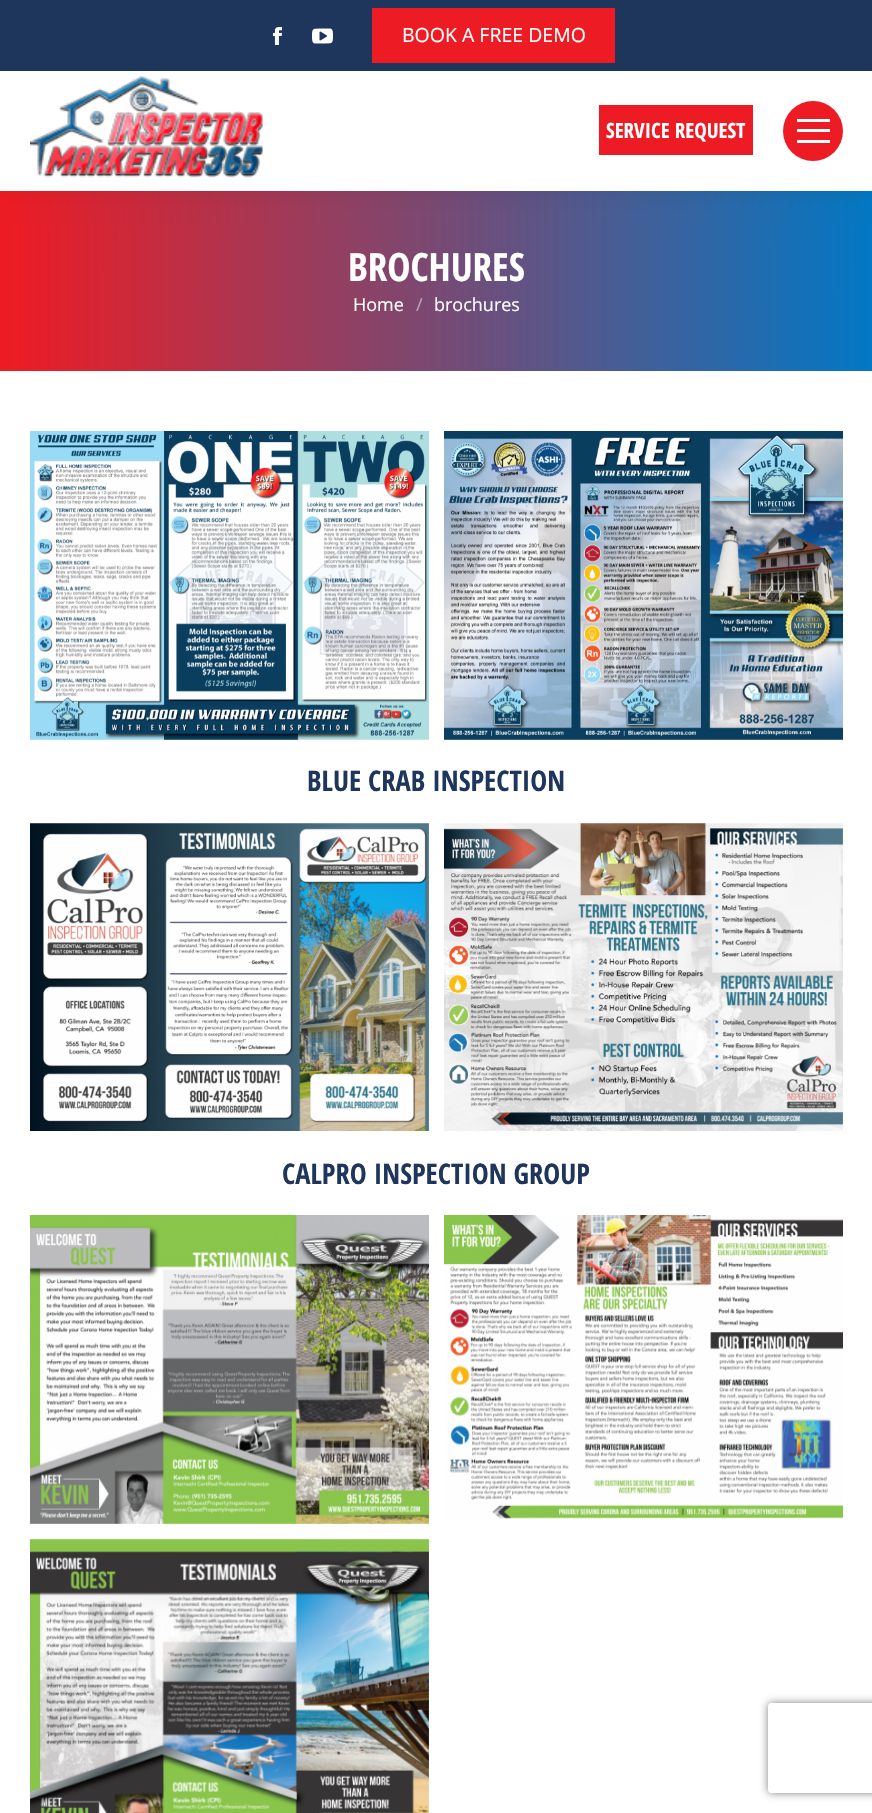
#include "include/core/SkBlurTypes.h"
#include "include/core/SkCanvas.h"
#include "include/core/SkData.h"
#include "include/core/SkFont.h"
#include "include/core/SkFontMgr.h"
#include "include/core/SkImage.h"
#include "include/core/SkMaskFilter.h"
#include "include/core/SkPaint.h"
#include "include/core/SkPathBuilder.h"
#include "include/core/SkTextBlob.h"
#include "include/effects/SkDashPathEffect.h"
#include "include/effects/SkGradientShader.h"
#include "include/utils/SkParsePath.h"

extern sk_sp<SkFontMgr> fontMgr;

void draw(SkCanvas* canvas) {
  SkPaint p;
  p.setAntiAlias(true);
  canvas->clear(SK_ColorWHITE);
  {
    const SkColor colors[] = {SkColorSetRGB(237, 28, 36), SkColorSetRGB(2, 120, 196)};
    const float stops[] = {0.01f, 1};
    const SkPoint ends[] = {{0, 281}, {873, 280}};
    p.setShader(SkGradientShader::MakeLinear(ends, colors, stops, 2, SkTileMode::kClamp));
    p.setAlpha(255);
  }
  canvas->drawRect(SkRect::MakeLTRB(0, 191, 872, 371), p);
  p.setShader(nullptr);
  p.setColor(SkColorSetARGB(18, 0, 0, 0));
  p.setMaskFilter(SkMaskFilter::MakeBlur(kNormal_SkBlurStyle, 11));
  canvas->drawRect(SkRect::MakeLTRB(-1, -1, 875, 192), p);
  p.setMaskFilter(nullptr);
  p.setColor(SK_ColorWHITE);
  canvas->drawRect(SkRect::MakeLTRB(0, 71, 872, 191), p);
  p.setColor(SkColorSetRGB(31, 54, 92));
  canvas->drawRect(SkRect::MakeLTRB(0, 0, 872, 71), p);
  canvas->drawImageRect(SkImages::DeferredFromEncodedData(SkData::MakeFromFileName("images/1.png")), SkRect::MakeLTRB(272, 27, 283, 45), SkSamplingOptions());
  canvas->drawImageRect(SkImages::DeferredFromEncodedData(SkData::MakeFromFileName("images/2.png")), SkRect::MakeLTRB(312, 28, 333, 44), SkSamplingOptions());
  p.setColor(SkColorSetRGB(237, 28, 36));
  canvas->drawRect(SkRect::MakeLTRB(372, 8, 615, 63), p);
  canvas->drawImageRect(SkImages::DeferredFromEncodedData(SkData::MakeFromFileName("images/3.png")), SkRect::MakeLTRB(30, 76, 263, 178), SkSamplingOptions());
  canvas->drawRect(SkRect::MakeLTRB(599, 105, 753, 155), p);
  canvas->drawCircle(813, 131, 30, p);
  p.setColor(SK_ColorWHITE);
  canvas->drawRect(SkRect::MakeLTRB(797, 129, 830, 132), p);
  canvas->drawRect(SkRect::MakeLTRB(797, 119, 830, 122), p);
  canvas->drawRect(SkRect::MakeLTRB(797, 140, 830, 143), p);
  canvas->drawImageRect(SkImages::DeferredFromEncodedData(SkData::MakeFromFileName("images/4.png")), SkRect::MakeLTRB(30, 431, 429, 740), SkSamplingOptions());
  canvas->drawImageRect(SkImages::DeferredFromEncodedData(SkData::MakeFromFileName("images/5.png")), SkRect::MakeLTRB(444, 431, 843, 740), SkSamplingOptions());
  canvas->drawImageRect(SkImages::DeferredFromEncodedData(SkData::MakeFromFileName("images/6.png")), SkRect::MakeLTRB(30, 823, 429, 1131), SkSamplingOptions());
  canvas->drawImageRect(SkImages::DeferredFromEncodedData(SkData::MakeFromFileName("images/7.png")), SkRect::MakeLTRB(444, 823, 843, 1131), SkSamplingOptions());
  canvas->drawImageRect(SkImages::DeferredFromEncodedData(SkData::MakeFromFileName("images/8.png")), SkRect::MakeLTRB(30, 1215, 429, 1524), SkSamplingOptions());
  canvas->drawImageRect(SkImages::DeferredFromEncodedData(SkData::MakeFromFileName("images/9.png")), SkRect::MakeLTRB(444, 1215, 843, 1519), SkSamplingOptions());
  canvas->drawImageRect(SkImages::DeferredFromEncodedData(SkData::MakeFromFileName("images/10.png")), SkRect::MakeLTRB(30, 1539, 429, 1813), SkSamplingOptions());
  canvas->save();
  canvas->clipPath(SkPathBuilder(SkPathFillType::kEvenOdd).moveTo(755, 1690).lineTo(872, 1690).lineTo(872, 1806).lineTo(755, 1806).close().moveTo(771, 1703).lineTo(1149, 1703).cubicTo(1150.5f, 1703, 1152, 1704.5f, 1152, 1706).lineTo(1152, 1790).cubicTo(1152, 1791.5f, 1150.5f, 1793, 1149, 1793).lineTo(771, 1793).cubicTo(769.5f, 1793, 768, 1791.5f, 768, 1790).lineTo(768, 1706).cubicTo(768, 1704.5f, 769.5f, 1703, 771, 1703).close().detach(), true);
  p.setColor(SkColorSetRGB(128, 128, 128));
  p.setMaskFilter(SkMaskFilter::MakeBlur(kNormal_SkBlurStyle, 4));
  canvas->drawRoundRect(SkRect::MakeLTRB(768, 1703, 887, 1793), 3, 3, p);
  p.setMaskFilter(nullptr);
  canvas->restore();
  SkFont font1(fontMgr->matchFamilyStyle("Open Sans", SkFontStyle::Normal()), 19.5f);
  font1.setSubpixel(true);
  p.setColor(SK_ColorWHITE);
  canvas->drawString("BOOK A FREE DEMO", 402, 42, font1, p);
  SkFont font2(fontMgr->matchFamilyStyle("Open Sans Condensed", SkFontStyle::Bold()), 21);
  font2.setSubpixel(true);
  canvas->drawString("SERVICE REQUEST", 606, 138, font2, p);
  SkFont font3(fontMgr->matchFamilyStyle("Open Sans Condensed", SkFontStyle::Bold()), 39);
  font3.setSubpixel(true);
  canvas->drawString("BROCHURES", 348, 281, font3, p);
  SkFont font4(fontMgr->matchFamilyStyle("Open Sans", SkFontStyle::Normal()), 18);
  font4.setSubpixel(true);
  canvas->drawString("Home", 353, 311, font4, p);
  p.setColor(SkColorSetRGB(190, 163, 183));
  canvas->drawString("/", 416, 311, font4, p);
  p.setColor(SK_ColorWHITE);
  canvas->drawString("brochures", 434, 311, font4, p);
  SkFont font5(fontMgr->matchFamilyStyle("Open Sans Condensed", SkFontStyle::Bold()), 28.5f);
  font5.setSubpixel(true);
  p.setColor(SkColorSetRGB(31, 54, 92));
  canvas->drawString("BLUE CRAB INSPECTION", 307, 791, font5, p);
  canvas->drawString("CALPRO INSPECTION GROUP", 282, 1184, font5, p);
}
